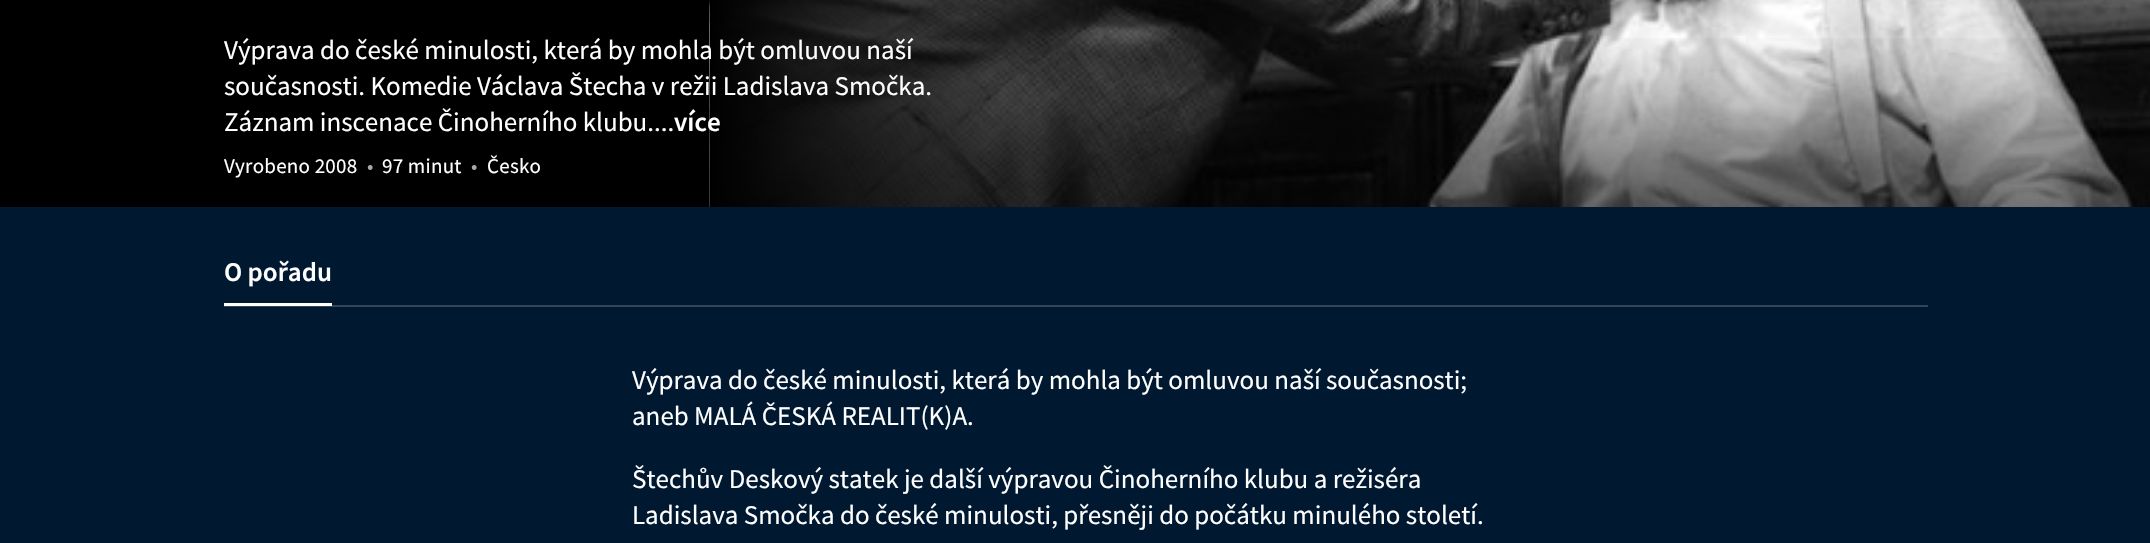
#include "include/core/SkBlurTypes.h"
#include "include/core/SkCanvas.h"
#include "include/core/SkData.h"
#include "include/core/SkFont.h"
#include "include/core/SkFontMgr.h"
#include "include/core/SkImage.h"
#include "include/core/SkMaskFilter.h"
#include "include/core/SkPaint.h"
#include "include/core/SkPathBuilder.h"
#include "include/core/SkTextBlob.h"
#include "include/effects/SkDashPathEffect.h"
#include "include/effects/SkGradientShader.h"
#include "include/utils/SkParsePath.h"

extern sk_sp<SkFontMgr> fontMgr;

void draw(SkCanvas* canvas) {
  SkPaint p;
  p.setAntiAlias(true);
  auto spacedText = [&](const char* s, float x, float y, const SkFont& font, const SkPaint& ink, float letter, float word) {
    std::vector<SkGlyphID> glyphs(font.countText(s, strlen(s), SkTextEncoding::kUTF8));
    std::vector<float> xs(glyphs.size());
    font.textToGlyphs(s, strlen(s), SkTextEncoding::kUTF8, glyphs);
    font.getXPos(glyphs, xs, x);
    float extra = 0;
    for (size_t i = 0; i < glyphs.size(); i++) {
      xs[i] += extra;
      extra += letter + word * (glyphs[i] == font.unicharToGlyph(' '));
    }
    canvas->drawTextBlob(SkTextBlob::MakeFromPosHGlyphs(glyphs, xs, y, font), 0, 0, ink);
  };
  canvas->clear(SkColorSetRGB(0, 24, 48));
  p.setColor(SK_ColorBLACK);
  canvas->drawRect(SkRect::MakeLTRB(0, 0, 710, 207), p);
  canvas->drawImageRect(SkImages::DeferredFromEncodedData(SkData::MakeFromFileName("images/1.png")), SkRect::MakeLTRB(709, 0, 2150, 207), SkSamplingOptions());
  {
    const SkColor colors[] = {SkColorSetARGB(0, 0, 0, 0), SkColorSetARGB(13, 0, 0, 0), SkColorSetARGB(48, 0, 0, 0), SkColorSetARGB(89, 0, 0, 0), SkColorSetARGB(115, 0, 0, 0), SkColorSetARGB(140, 0, 0, 0)};
    const float stops[] = {0, 0.13f, 0.37f, 0.58f, 0.74f, 1};
    const SkPoint ends[] = {{1076, 28}, {1076, 207}};
    p.setShader(SkGradientShader::MakeLinear(ends, colors, stops, 6, SkTileMode::kClamp));
    p.setAlpha(255);
  }
  canvas->drawRect(SkRect::MakeLTRB(709, 38, 2150, 207), p);
  p.setShader(nullptr);
  p.setColor(SkColorSetRGB(51, 70, 89));
  canvas->drawRect(SkRect::MakeLTRB(224, 305, 1928, 307), p);
  p.setColor(SK_ColorWHITE);
  canvas->drawRect(SkRect::MakeLTRB(224, 303, 332, 306), p);
  SkFont font1(fontMgr->matchFamilyStyle("Source Sans Pro", SkFontStyle::Normal()), 27);
  font1.setSubpixel(true);
  canvas->drawString("Výprava do české minulosti, která by mohla být omluvou naší", 224, 59, font1, p);
  canvas->drawString("současnosti. Komedie Václava Štecha v režii Ladislava Smočka.", 224, 95, font1, p);
  canvas->drawString("Záznam inscenace Činoherního klubu....", 224, 131, font1, p);
  SkFont font2(fontMgr->matchFamilyStyle("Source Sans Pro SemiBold", SkFontStyle(600, SkFontStyle::kNormal_Width, SkFontStyle::kUpright_Slant)), 27);
  font2.setSubpixel(true);
  canvas->drawString("více", 674, 131, font2, p);
  SkFont font3(fontMgr->matchFamilyStyle("Source Sans Pro", SkFontStyle::Normal()), 21);
  font3.setSubpixel(true);
  spacedText("Vyrobeno 2008", 224, 173, font3, p, 0.25f, 0);
  p.setColor(SkColorSetRGB(168, 168, 168));
  spacedText("•", 367, 173, font3, p, 0.25f, 0);
  p.setColor(SK_ColorWHITE);
  spacedText("97 minut", 382, 173, font3, p, 0.25f, 0);
  p.setColor(SkColorSetRGB(168, 168, 168));
  spacedText("•", 471, 173, font3, p, 0.25f, 0);
  p.setColor(SK_ColorWHITE);
  spacedText("Česko", 487, 173, font3, p, 0.25f, 0);
  canvas->drawString("O pořadu", 224, 281, font2, p);
  canvas->drawString("Výprava do české minulosti, která by mohla být omluvou naší současnosti;", 632, 389, font1, p);
  canvas->drawString("aneb MALÁ ČESKÁ REALIT(K)A.", 632, 425, font1, p);
  canvas->drawString("Štechův Deskový statek je další výpravou Činoherního klubu a režiséra", 632, 488, font1, p);
  canvas->drawString("Ladislava Smočka do české minulosti, přesněji do počátku minulého století.", 632, 524, font1, p);
}
